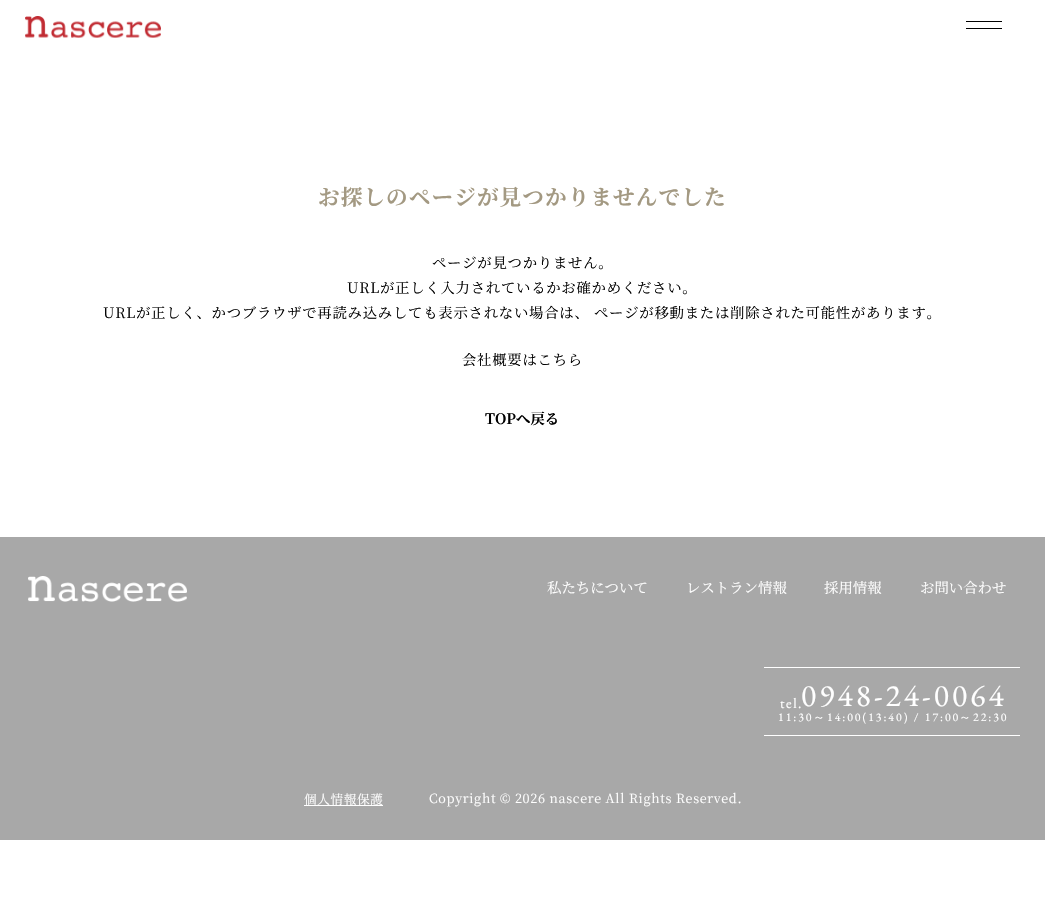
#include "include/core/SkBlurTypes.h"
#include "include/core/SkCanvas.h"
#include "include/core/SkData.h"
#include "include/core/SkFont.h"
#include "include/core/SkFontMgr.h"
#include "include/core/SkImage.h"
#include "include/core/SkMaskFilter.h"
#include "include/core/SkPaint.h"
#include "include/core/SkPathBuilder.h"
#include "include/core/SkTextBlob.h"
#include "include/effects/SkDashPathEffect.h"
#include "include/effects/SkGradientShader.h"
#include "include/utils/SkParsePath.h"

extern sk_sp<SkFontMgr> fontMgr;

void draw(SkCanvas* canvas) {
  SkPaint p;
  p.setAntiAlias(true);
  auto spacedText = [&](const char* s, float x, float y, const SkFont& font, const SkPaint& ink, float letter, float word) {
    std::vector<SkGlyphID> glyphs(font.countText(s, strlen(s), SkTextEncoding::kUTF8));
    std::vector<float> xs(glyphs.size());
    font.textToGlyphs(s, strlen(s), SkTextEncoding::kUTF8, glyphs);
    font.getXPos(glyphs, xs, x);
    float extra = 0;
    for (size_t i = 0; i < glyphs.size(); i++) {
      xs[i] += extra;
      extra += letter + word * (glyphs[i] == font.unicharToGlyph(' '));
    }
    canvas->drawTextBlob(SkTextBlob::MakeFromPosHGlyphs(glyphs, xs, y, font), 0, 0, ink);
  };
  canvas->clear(SK_ColorWHITE);
  canvas->drawImageRect(SkImages::DeferredFromEncodedData(SkData::MakeFromFileName("images/1.png")), SkRect::MakeLTRB(25, 16, 161, 38), SkSamplingOptions());
  p.setColor(SK_ColorBLACK);
  canvas->drawRect(SkRect::MakeLTRB(966, 21, 1002, 22), p);
  canvas->drawRect(SkRect::MakeLTRB(966, 28, 1002, 29), p);
  p.setColor(SkColorSetRGB(168, 168, 168));
  canvas->drawRect(SkRect::MakeLTRB(0, 537, 1045, 840), p);
  canvas->drawImageRect(SkImages::DeferredFromEncodedData(SkData::MakeFromFileName("images/2.png")), SkRect::MakeLTRB(28, 576, 187, 602), SkSamplingOptions());
  p.setColor(SK_ColorWHITE);
  canvas->drawRect(SkRect::MakeLTRB(764, 667, 1020, 668), p);
  canvas->drawRect(SkRect::MakeLTRB(764, 735, 1020, 736), p);
  canvas->drawRect(SkRect::MakeLTRB(304, 805, 383, 806), p);
  SkFont font1(fontMgr->matchFamilyStyle("Noto Serif JP", SkFontStyle::Bold()), 21.6f);
  font1.setSubpixel(true);
  p.setColor(SkColorSetRGB(163, 153, 130));
  spacedText("お探しのページが見つかりませんでした", 318, 205, font1, p, 1.1f, 0);
  SkFont font2(fontMgr->matchFamilyStyle("Noto Serif JP", SkFontStyle::Normal()), 14.4f);
  font2.setSubpixel(true);
  p.setColor(SK_ColorBLACK);
  spacedText("ページが見つかりません。", 432, 268, font2, p, 0.72f, 0);
  spacedText("URLが正しく入力されているかお確かめください。", 347, 293, font2, p, 0.72f, 0);
  spacedText("URLが正しく、かつブラウザで再読み込みしても表示されない場合は、 ページが移動または削除された可能性があります。", 103, 318, font2, p, 0.72f, 0);
  spacedText("会社概要はこちら", 462, 365, font2, p, 0.72f, 0);
  SkFont font3(fontMgr->matchFamilyStyle("Noto Serif JP", SkFontStyle::Bold()), 14.4f);
  font3.setSubpixel(true);
  canvas->drawString("TOPへ戻る", 485, 424, font3, p);
  p.setColor(SK_ColorWHITE);
  canvas->drawString("私たちについて", 547, 593, font2, p);
  canvas->drawString("レストラン情報", 686, 593, font2, p);
  canvas->drawString("採用情報", 824, 593, font2, p);
  canvas->drawString("お問い合わせ", 920, 593, font2, p);
  SkFont font4(fontMgr->matchFamilyStyle("EB Garamond", SkFontStyle::Normal()), 14.4f);
  font4.setSubpixel(true);
  spacedText("tel.", 780, 708, font4, p, 1.5f, 0);
  SkFont font5(fontMgr->matchFamilyStyle("EB Garamond", SkFontStyle::Normal()), 31.5f);
  font5.setSubpixel(true);
  spacedText("0948-24-0064", 801, 706, font5, p, 3.1f, 0);
  SkFont font6(fontMgr->matchFamilyStyle("EB Garamond", SkFontStyle::Normal()), 11.75f);
  font6.setSubpixel(true);
  spacedText("11:30", 778, 721, font6, p, 2, 0);
  SkFont font7(fontMgr->matchFamilyStyle("WenQuanYi Zen Hei", SkFontStyle(500, SkFontStyle::kNormal_Width, SkFontStyle::kUpright_Slant)), 11.75f);
  font7.setSubpixel(true);
  spacedText("～", 813, 721, font7, p, 2, 0);
  spacedText("14:00(13:40) / 17:00", 827, 721, font6, p, 2, 0);
  spacedText("～", 959, 721, font7, p, 2, 0);
  spacedText("22:30", 973, 721, font6, p, 2, 0);
  SkFont font8(fontMgr->matchFamilyStyle("Noto Serif JP", SkFontStyle::Normal()), 12.6f);
  font8.setSubpixel(true);
  spacedText("個人情報保護", 304, 804, font8, p, 0.65f, 0);
  spacedText("Copyright © 2026 nascere All Rights Reserved.", 429, 803, font8, p, 0.65f, 0);
}
